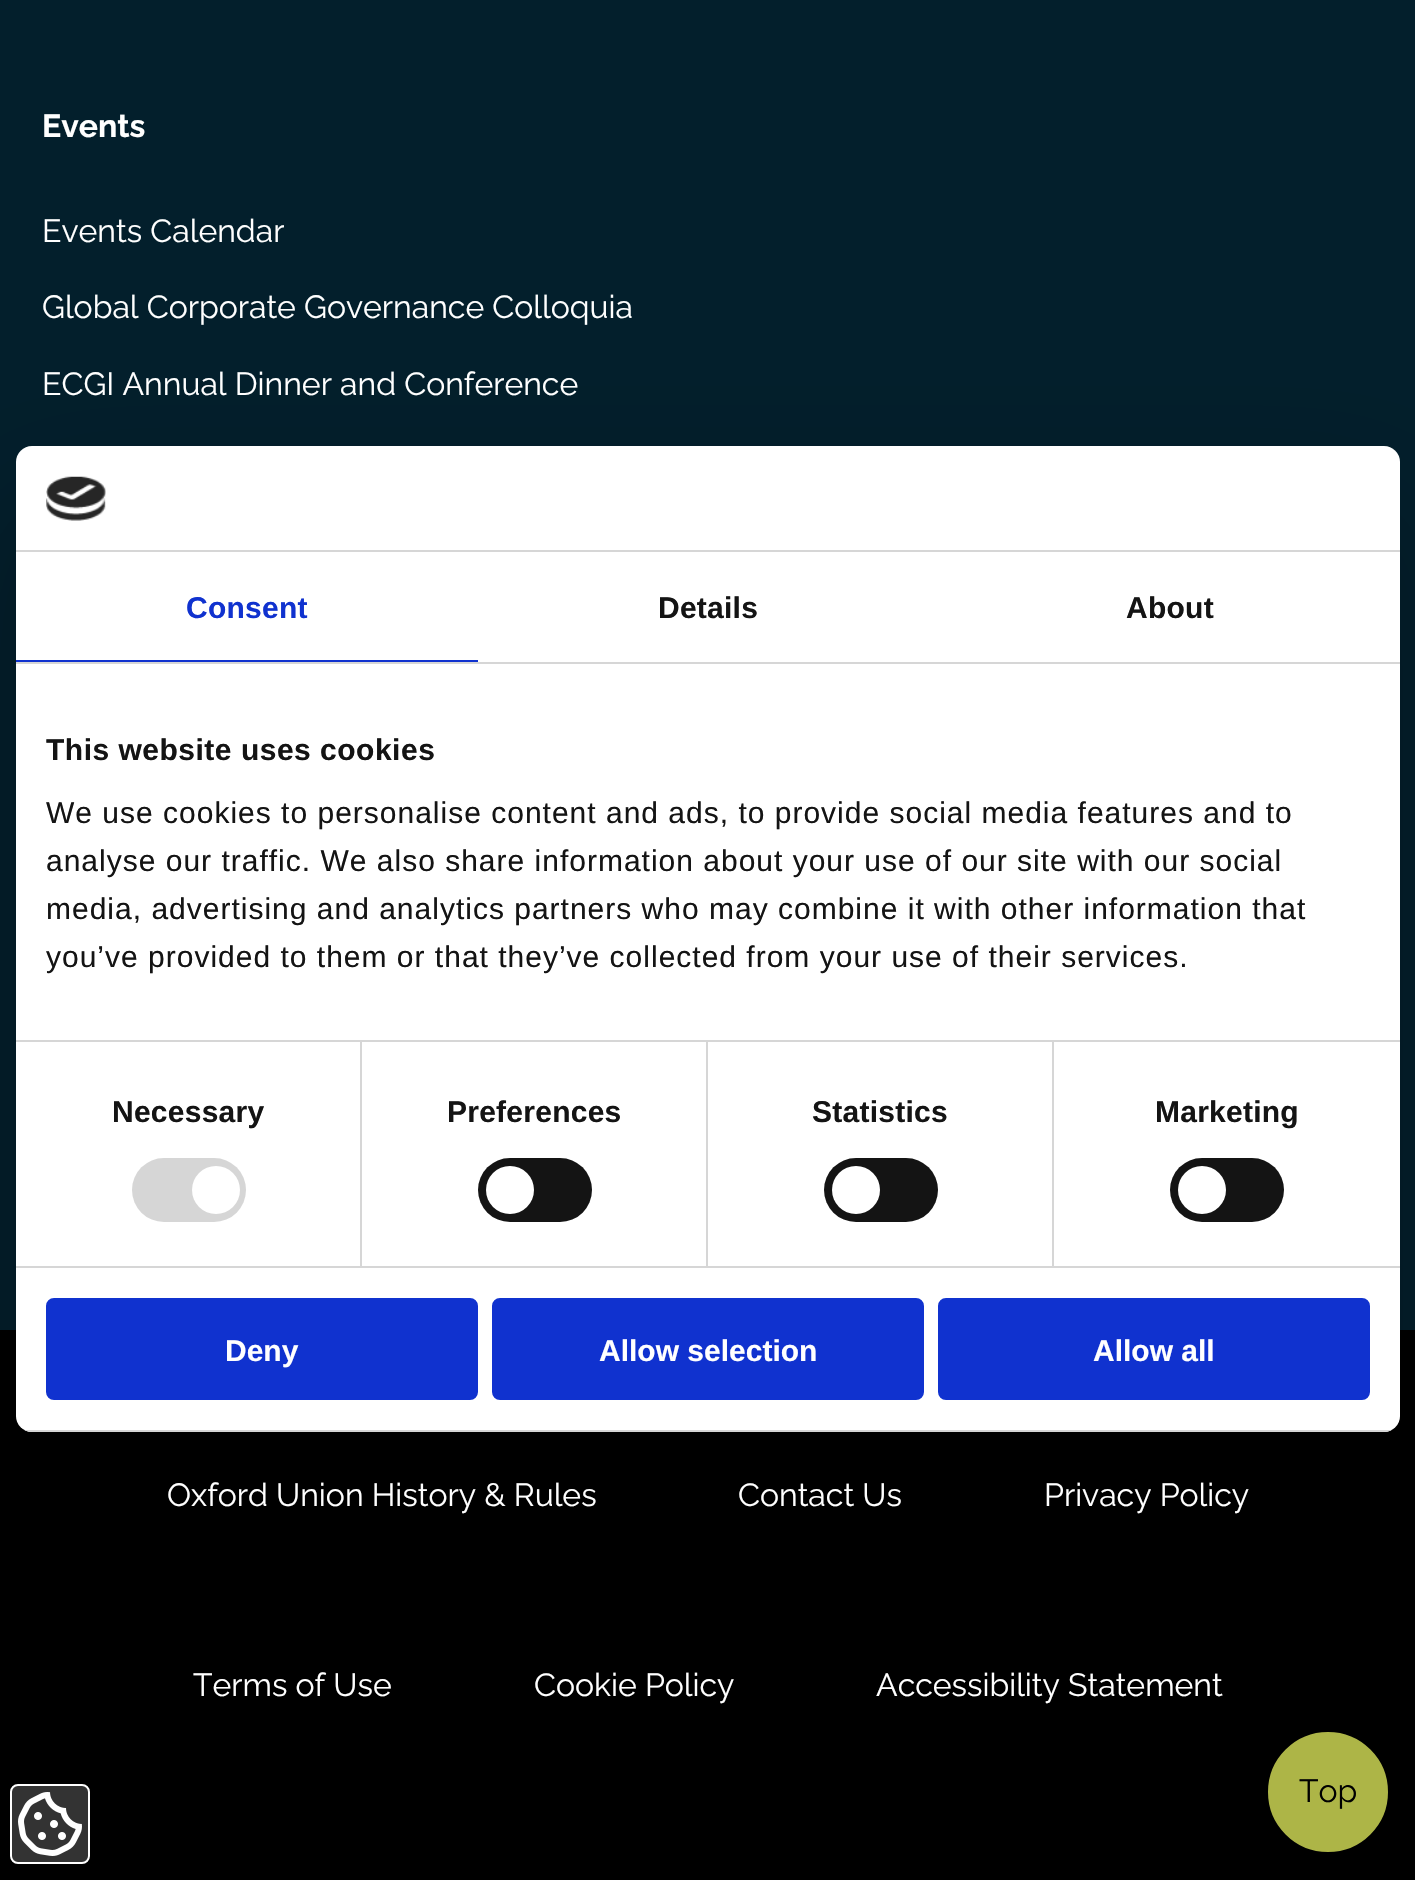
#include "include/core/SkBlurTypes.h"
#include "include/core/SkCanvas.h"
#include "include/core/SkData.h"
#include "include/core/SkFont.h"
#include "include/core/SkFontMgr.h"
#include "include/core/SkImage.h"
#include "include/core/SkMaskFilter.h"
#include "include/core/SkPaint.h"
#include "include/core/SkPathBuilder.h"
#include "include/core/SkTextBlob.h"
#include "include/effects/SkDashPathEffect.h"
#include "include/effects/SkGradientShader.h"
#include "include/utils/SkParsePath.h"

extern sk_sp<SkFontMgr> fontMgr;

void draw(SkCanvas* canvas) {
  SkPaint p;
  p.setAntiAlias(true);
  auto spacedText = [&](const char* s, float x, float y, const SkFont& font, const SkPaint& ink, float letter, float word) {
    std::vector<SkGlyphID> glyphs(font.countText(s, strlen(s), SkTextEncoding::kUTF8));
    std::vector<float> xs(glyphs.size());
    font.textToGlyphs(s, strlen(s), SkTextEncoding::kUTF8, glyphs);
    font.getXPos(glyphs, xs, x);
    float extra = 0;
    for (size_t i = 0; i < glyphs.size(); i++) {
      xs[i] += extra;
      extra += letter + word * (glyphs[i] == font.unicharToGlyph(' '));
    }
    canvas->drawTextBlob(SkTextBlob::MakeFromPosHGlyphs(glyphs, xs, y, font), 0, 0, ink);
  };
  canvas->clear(SkColorSetRGB(3, 31, 44));
  p.setColor(SK_ColorBLACK);
  canvas->drawRect(SkRect::MakeLTRB(0, 1330, 1415, 1880), p);
  p.setColor(SkColorSetRGB(173, 181, 71));
  canvas->drawCircle(1328, 1792, 59, p);
  p.setStyle(SkPaint::kStroke_Style);
  p.setStrokeWidth(2);
  canvas->drawCircle(1328, 1792, 59, p);
  p.setStyle(SkPaint::kFill_Style);
  p.setColor(SkColorSetARGB(77, 0, 0, 0));
  p.setMaskFilter(SkMaskFilter::MakeBlur(kNormal_SkBlurStyle, 68));
  canvas->drawRoundRect(SkRect::MakeLTRB(16, 510, 1400, 1496), 16, 16, p);
  p.setMaskFilter(nullptr);
  p.setColor(SK_ColorWHITE);
  canvas->drawRoundRect(SkRect::MakeLTRB(16, 446, 1400, 1432), 16, 16, p);
  p.setColor(SkColorSetRGB(214, 214, 214));
  canvas->drawRect(SkRect::MakeLTRB(16, 550, 1400, 552), p);
  canvas->drawImageRect(SkImages::DeferredFromEncodedData(SkData::MakeFromFileName("images/1.png")), SkRect::MakeLTRB(46, 476, 106, 521), SkSamplingOptions());
  canvas->drawRect(SkRect::MakeLTRB(16, 662, 1400, 664), p);
  p.setColor(SkColorSetRGB(16, 50, 207));
  canvas->drawRect(SkRect::MakeLTRB(16, 660, 478, 662), p);
  p.setColor(SkColorSetRGB(214, 214, 214));
  canvas->drawRect(SkRect::MakeLTRB(16, 1040, 1400, 1042), p);
  canvas->drawRect(SkRect::MakeLTRB(16, 1266, 1400, 1268), p);
  canvas->drawRect(SkRect::MakeLTRB(360, 1042, 362, 1266), p);
  canvas->drawRoundRect(SkRect::MakeLTRB(132, 1158, 246, 1222), 32, 32, p);
  p.setColor(SK_ColorWHITE);
  canvas->drawCircle(216, 1190, 24, p);
  p.setColor(SkColorSetRGB(214, 214, 214));
  canvas->drawRect(SkRect::MakeLTRB(706, 1042, 708, 1266), p);
  p.setColor(SkColorSetRGB(20, 20, 20));
  canvas->drawRoundRect(SkRect::MakeLTRB(478, 1158, 592, 1222), 32, 32, p);
  p.setColor(SK_ColorWHITE);
  canvas->drawCircle(510, 1190, 24, p);
  p.setColor(SkColorSetRGB(214, 214, 214));
  canvas->drawRect(SkRect::MakeLTRB(1052, 1042, 1054, 1266), p);
  p.setColor(SkColorSetRGB(20, 20, 20));
  canvas->drawRoundRect(SkRect::MakeLTRB(824, 1158, 938, 1222), 32, 32, p);
  p.setColor(SK_ColorWHITE);
  canvas->drawCircle(856, 1190, 24, p);
  p.setColor(SkColorSetRGB(20, 20, 20));
  canvas->drawRoundRect(SkRect::MakeLTRB(1170, 1158, 1284, 1222), 32, 32, p);
  p.setColor(SK_ColorWHITE);
  canvas->drawCircle(1202, 1190, 24, p);
  canvas->save();
  canvas->clipPath(SkPathBuilder().moveTo(32, 446).lineTo(1384, 446).cubicTo(1393, 446, 1400, 453, 1400, 462).lineTo(1400, 1416).cubicTo(1400, 1425, 1393, 1432, 1384, 1432).lineTo(32, 1432).cubicTo(23, 1432, 16, 1425, 16, 1416).lineTo(16, 462).cubicTo(16, 453, 23, 446, 32, 446).close().detach(), true);
  p.setColor(SkColorSetRGB(214, 214, 214));
  canvas->drawRect(SkRect::MakeLTRB(16, 1430, 1400, 1432), p);
  canvas->restore();
  p.setColor(SkColorSetRGB(16, 50, 207));
  canvas->drawRoundRect(SkRect::MakeLTRB(48, 1300, 476, 1398), 6, 6, p);
  p.setStyle(SkPaint::kStroke_Style);
  p.setStrokeWidth(4);
  canvas->drawRoundRect(SkRect::MakeLTRB(48, 1300, 476, 1398), 6, 6, p);
  p.setStyle(SkPaint::kFill_Style);
  canvas->drawRoundRect(SkRect::MakeLTRB(494, 1300, 922, 1398), 6, 6, p);
  p.setStyle(SkPaint::kStroke_Style);
  canvas->drawRoundRect(SkRect::MakeLTRB(494, 1300, 922, 1398), 6, 6, p);
  p.setStyle(SkPaint::kFill_Style);
  canvas->drawRoundRect(SkRect::MakeLTRB(940, 1300, 1368, 1398), 6, 6, p);
  p.setStyle(SkPaint::kStroke_Style);
  canvas->drawRoundRect(SkRect::MakeLTRB(940, 1300, 1368, 1398), 6, 6, p);
  p.setStyle(SkPaint::kFill_Style);
  p.setColor(SkColorSetRGB(51, 51, 51));
  canvas->drawRoundRect(SkRect::MakeLTRB(11, 1785, 89, 1863), 7, 7, p);
  p.setStyle(SkPaint::kStroke_Style);
  p.setStrokeWidth(2);
  p.setColor(SK_ColorWHITE);
  canvas->drawRoundRect(SkRect::MakeLTRB(11, 1785, 89, 1863), 7, 7, p);
  canvas->drawImageRect(SkImages::DeferredFromEncodedData(SkData::MakeFromFileName("images/2.png")), SkRect::MakeLTRB(18, 1792, 82, 1856), SkSamplingOptions());
  SkFont font1(fontMgr->matchFamilyStyle("Raleway", SkFontStyle(100, SkFontStyle::kNormal_Width, SkFontStyle::kUpright_Slant)), 32);
  font1.setSubpixel(true);
  p.setStyle(SkPaint::kFill_Style);
  canvas->drawString("Events", 42, 137, font1, p);
  SkFont font2(fontMgr->matchFamilyStyle("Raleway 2", SkFontStyle(100, SkFontStyle::kNormal_Width, SkFontStyle::kUpright_Slant)), 32);
  font2.setSubpixel(true);
  canvas->drawString("Events Calendar", 42, 242, font2, p);
  canvas->drawString("Global Corporate Governance Colloquia", 42, 318, font2, p);
  canvas->drawString("ECGI Annual Dinner and Conference", 42, 395, font2, p);
  canvas->drawString("Oxford Union History & Rules", 167, 1506, font2, p);
  canvas->drawString("Contact Us", 738, 1506, font2, p);
  canvas->drawString("Privacy Policy", 1044, 1506, font2, p);
  canvas->drawString("Terms of Use", 193, 1696, font2, p);
  canvas->drawString("Cookie Policy", 534, 1696, font2, p);
  canvas->drawString("Accessibility Statement", 876, 1696, font2, p);
  p.setColor(SK_ColorBLACK);
  canvas->drawString("Top", 1299, 1802, font2, p);
  SkFont font3(fontMgr->matchFamilyStyle("Liberation Sans", SkFontStyle::Bold()), 30);
  font3.setSubpixel(true);
  p.setColor(SkColorSetRGB(16, 50, 207));
  spacedText("Consent", 186, 618, font3, p, 0.25f, 0);
  p.setColor(SkColorSetRGB(20, 20, 20));
  spacedText("Details", 658, 618, font3, p, 0.25f, 0);
  spacedText("About", 1126, 618, font3, p, 0.25f, 0);
  spacedText("This website uses cookies", 46, 760, font3, p, 0.5f, 0);
  SkFont font4(fontMgr->matchFamilyStyle("Liberation Sans", SkFontStyle::Normal()), 30);
  font4.setSubpixel(true);
  spacedText("We use cookies to personalise content and ads, to provide social media features and to", 46, 823, font4, p, 1, 0);
  spacedText("analyse our traffic. We also share information about your use of our site with our social", 46, 871, font4, p, 1, 0);
  spacedText("media, advertising and analytics partners who may combine it with other information that", 46, 919, font4, p, 1, 0);
  spacedText("you’ve provided to them or that they’ve collected from your use of their services.", 46, 967, font4, p, 1, 0);
  spacedText("Necessary", 112, 1122, font3, p, 0.25f, 0);
  spacedText("Preferences", 447, 1122, font3, p, 0.25f, 0);
  spacedText("Statistics", 812, 1122, font3, p, 0.25f, 0);
  spacedText("Marketing", 1155, 1122, font3, p, 0.25f, 0);
  p.setColor(SK_ColorWHITE);
  canvas->drawString("Deny", 225, 1361, font3, p);
  canvas->drawString("Allow selection", 599, 1361, font3, p);
  canvas->drawString("Allow all", 1093, 1361, font3, p);
}
